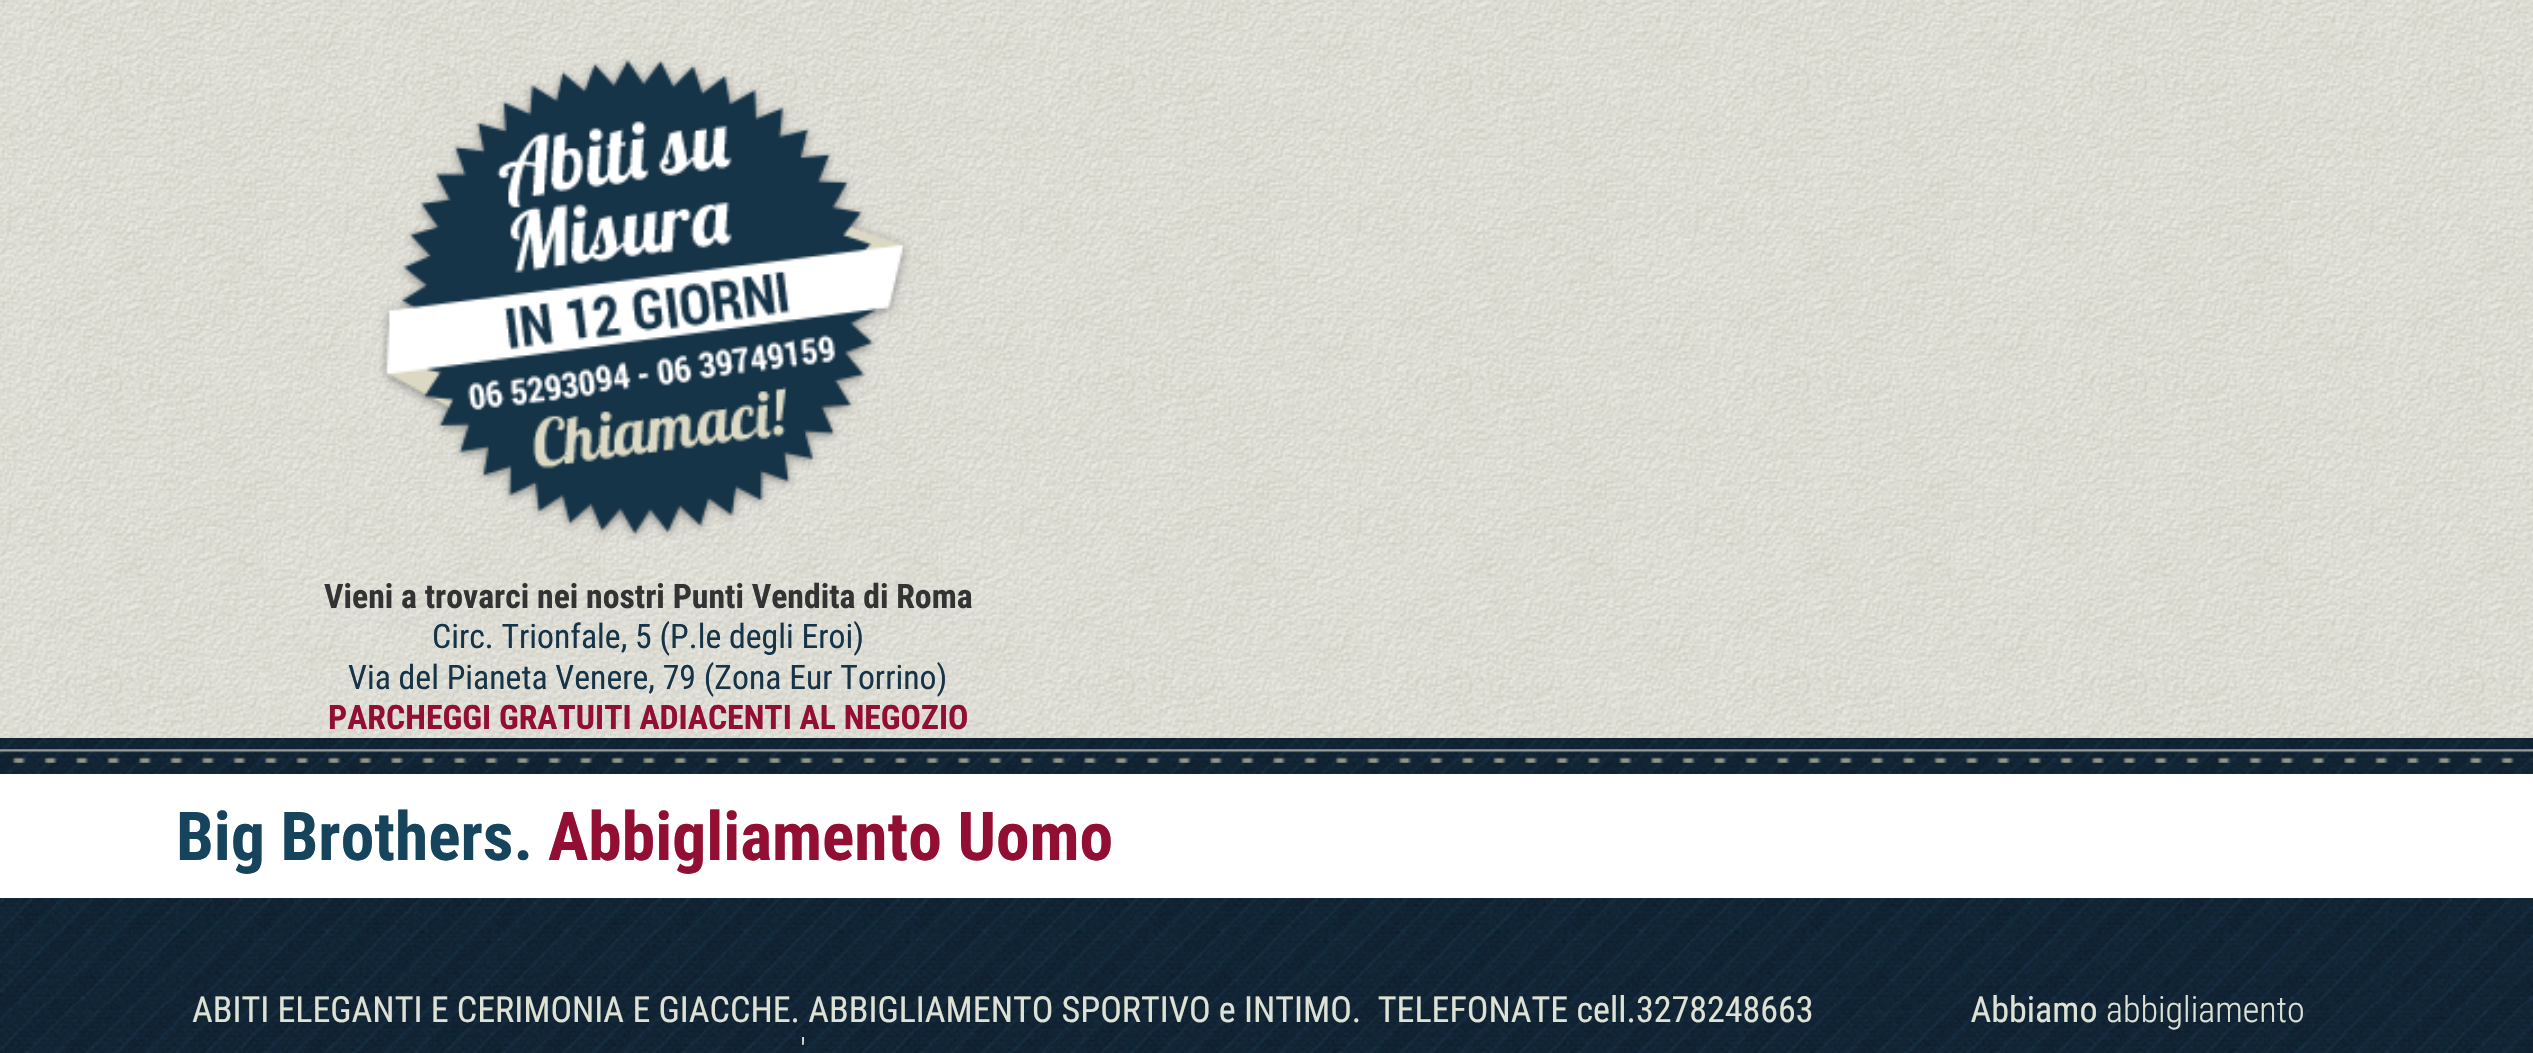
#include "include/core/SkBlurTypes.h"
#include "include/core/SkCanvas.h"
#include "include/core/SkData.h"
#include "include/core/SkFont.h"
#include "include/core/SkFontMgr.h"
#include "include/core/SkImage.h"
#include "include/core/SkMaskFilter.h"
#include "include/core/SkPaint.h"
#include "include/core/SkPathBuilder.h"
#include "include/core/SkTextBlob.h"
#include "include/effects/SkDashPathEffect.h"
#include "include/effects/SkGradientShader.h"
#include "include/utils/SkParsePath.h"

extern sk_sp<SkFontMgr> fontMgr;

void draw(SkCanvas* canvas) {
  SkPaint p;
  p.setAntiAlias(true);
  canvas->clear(SK_ColorWHITE);
  canvas->drawImageRect(SkImages::DeferredFromEncodedData(SkData::MakeFromFileName("images/1.png")), SkRect::MakeLTRB(0, 738, 2533, 1053), SkSamplingOptions());
  canvas->drawImageRect(SkImages::DeferredFromEncodedData(SkData::MakeFromFileName("images/2.png")), SkRect::MakeLTRB(0, 0, 2533, 738), SkSamplingOptions());
  canvas->drawImageRect(SkImages::DeferredFromEncodedData(SkData::MakeFromFileName("images/3.png")), SkRect::MakeLTRB(379, 58, 910, 541), SkSamplingOptions());
  canvas->drawImageRect(SkImages::DeferredFromEncodedData(SkData::MakeFromFileName("images/4.png")), SkRect::MakeLTRB(0, 749, 2533, 763), SkSamplingOptions());
  p.setColor(SK_ColorWHITE);
  canvas->drawRect(SkRect::MakeLTRB(0, 774, 2533, 898), p);
  SkFont font1(fontMgr->matchFamilyStyle("Roboto Condensed", SkFontStyle::Bold()), 33.75f);
  font1.setSubpixel(true);
  p.setColor(SkColorSetRGB(51, 51, 51));
  canvas->drawString("Vieni a trovarci nei nostri Punti Vendita di Roma", 324, 608, font1, p);
  SkFont font2(fontMgr->matchFamilyStyle("Roboto Condensed", SkFontStyle::Normal()), 33.75f);
  font2.setSubpixel(true);
  p.setColor(SkColorSetRGB(22, 52, 72));
  canvas->drawString("Circ. Trionfale, 5 (P.le degli Eroi)", 432, 648, font2, p);
  canvas->drawString("Via del Pianeta Venere, 79 (Zona Eur Torrino)", 348, 689, font2, p);
  p.setColor(SkColorSetRGB(146, 14, 50));
  canvas->drawString("PARCHEGGI GRATUITI ADIACENTI AL NEGOZIO", 328, 729, font1, p);
  SkFont font3(fontMgr->matchFamilyStyle("Roboto Condensed", SkFontStyle::Bold()), 67.5f);
  font3.setSubpixel(true);
  p.setColor(SkColorSetRGB(22, 68, 92));
  canvas->drawString("Big Brothers.", 176, 860, font3, p);
  p.setColor(SkColorSetRGB(146, 14, 50));
  canvas->drawString("Abbigliamento Uomo", 548, 860, font3, p);
  SkFont font4(fontMgr->matchFamilyStyle("Roboto Condensed", SkFontStyle::Normal()), 36);
  font4.setSubpixel(true);
  p.setColor(SkColorSetRGB(222, 226, 213));
  canvas->drawString("ABITI ELEGANTI E CERIMONIA E GIACCHE. ABBIGLIAMENTO SPORTIVO e INTIMO.  TELEFONATE cell.3278248663                   Abbiamo", 192, 1022, font4, p);
  SkFont font5(fontMgr->matchFamilyStyle("Roboto Condensed", SkFontStyle(300, SkFontStyle::kNormal_Width, SkFontStyle::kUpright_Slant)), 36);
  font5.setSubpixel(true);
  canvas->drawString("abbigliamento", 2106, 1022, font5, p);
  canvas->drawString("'", 800, 1064, font5, p);
}
